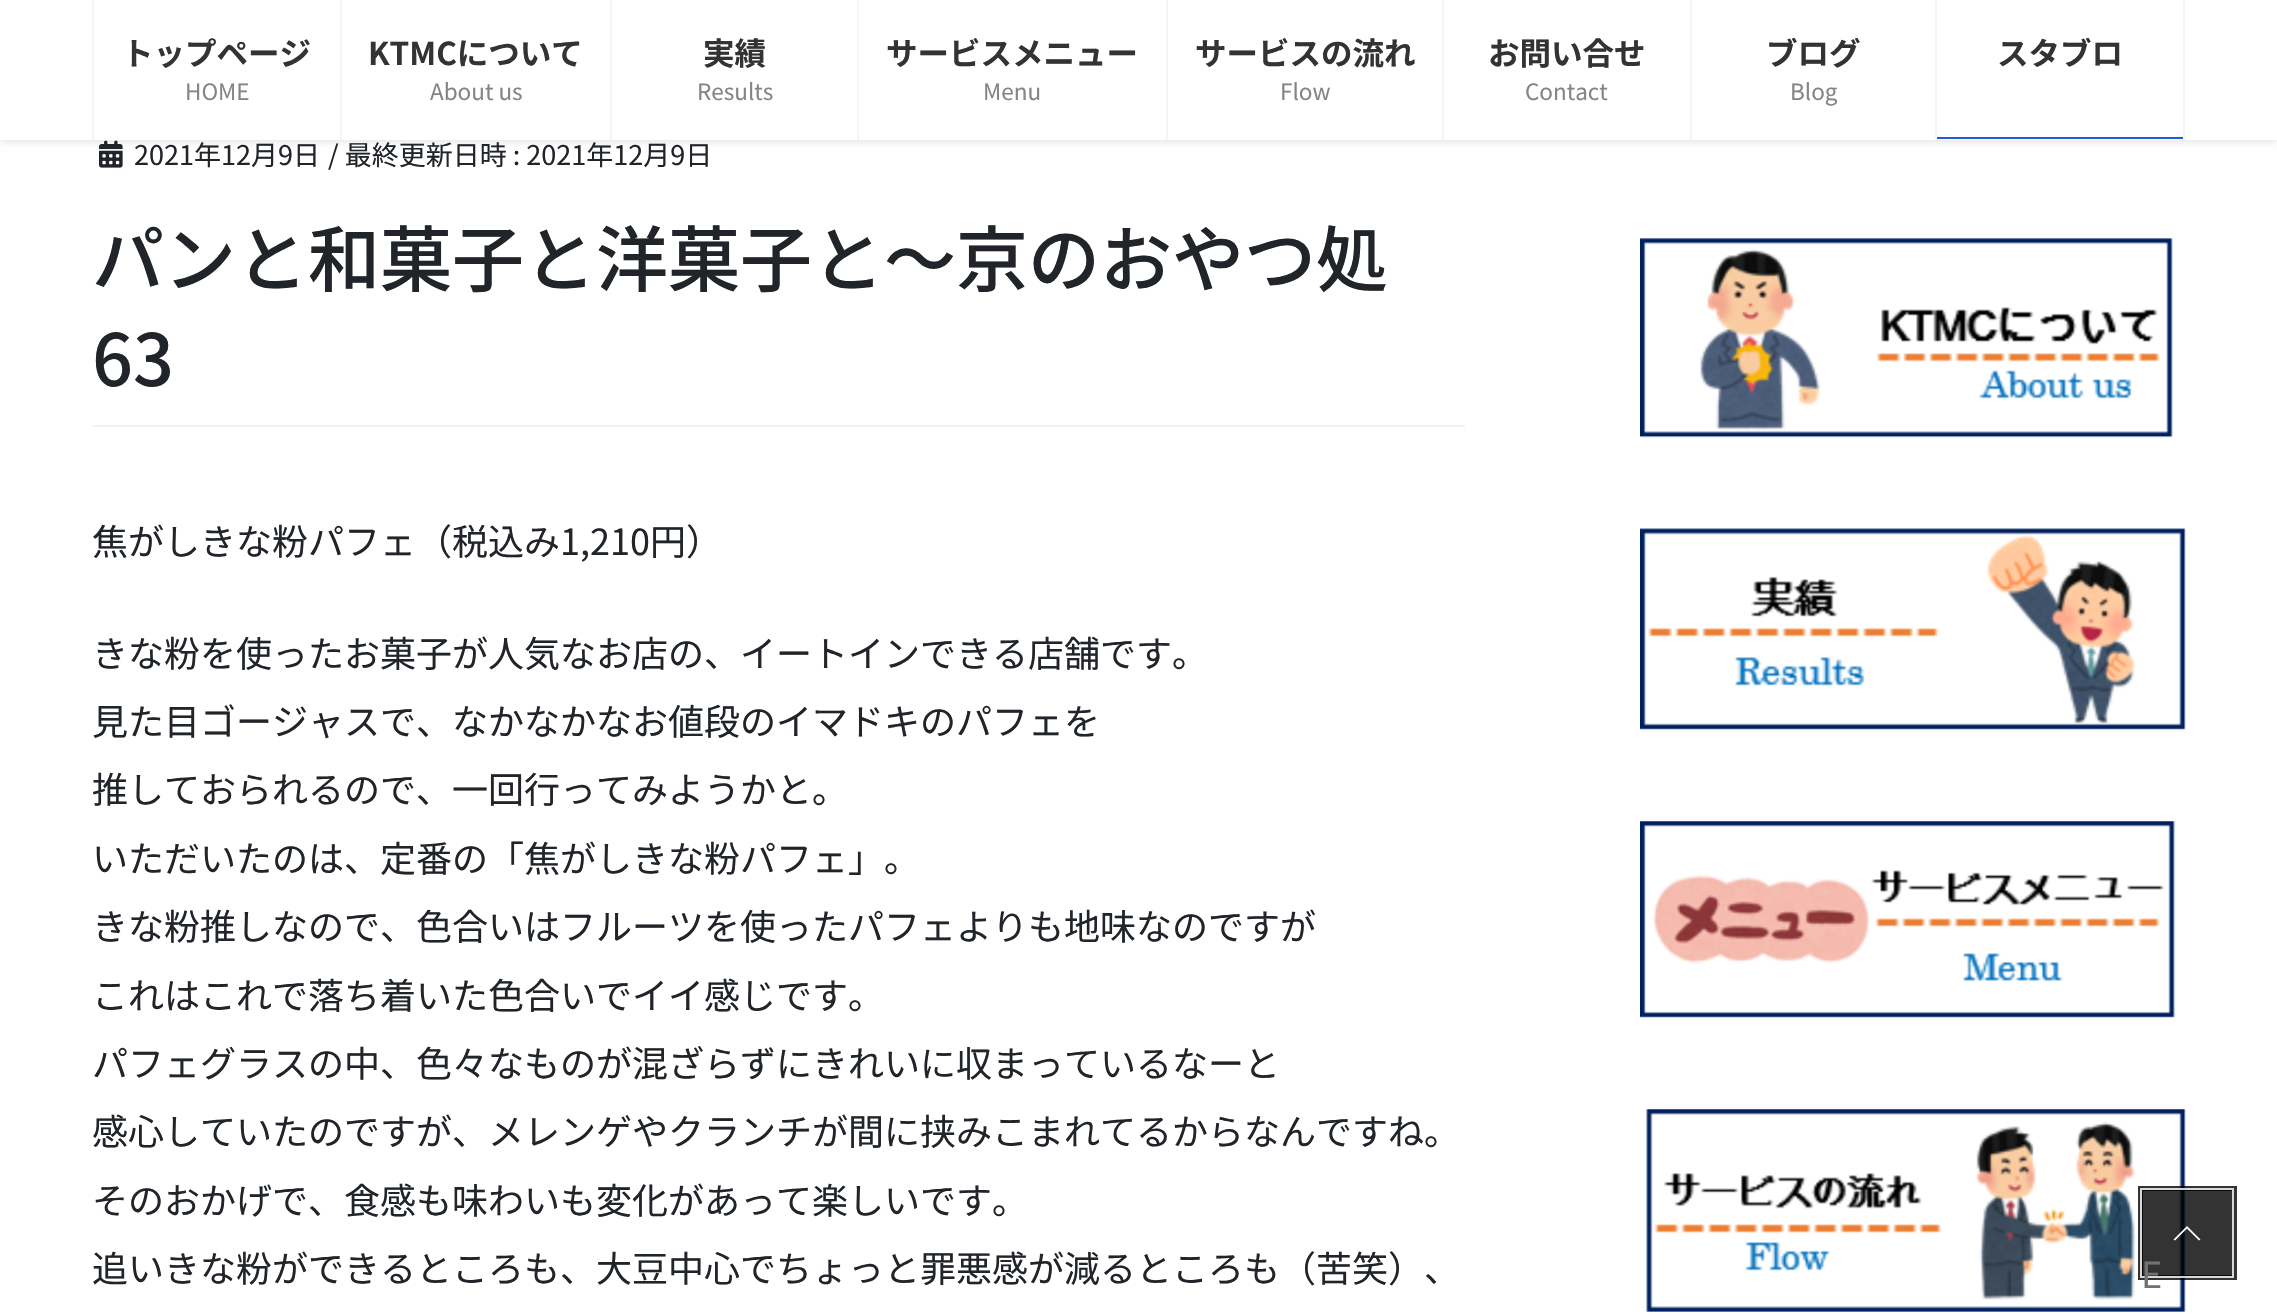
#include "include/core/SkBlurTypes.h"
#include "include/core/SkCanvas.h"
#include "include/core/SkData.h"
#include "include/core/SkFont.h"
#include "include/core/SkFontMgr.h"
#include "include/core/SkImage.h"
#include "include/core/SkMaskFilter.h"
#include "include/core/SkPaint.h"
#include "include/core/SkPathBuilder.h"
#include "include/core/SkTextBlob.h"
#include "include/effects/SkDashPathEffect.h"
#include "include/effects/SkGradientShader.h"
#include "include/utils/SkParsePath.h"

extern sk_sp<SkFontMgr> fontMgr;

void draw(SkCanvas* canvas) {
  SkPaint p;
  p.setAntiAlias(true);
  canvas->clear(SK_ColorWHITE);
  canvas->drawImageRect(SkImages::DeferredFromEncodedData(SkData::MakeFromFileName("images/1.png")), SkRect::MakeLTRB(99, 140, 123, 168), SkSamplingOptions());
  p.setColor(SkColorSetARGB(26, 0, 0, 0));
  p.setMaskFilter(SkMaskFilter::MakeBlur(kNormal_SkBlurStyle, 3.5f));
  canvas->drawRect(SkRect::MakeLTRB(0, 2, 2277, 142), p);
  p.setMaskFilter(nullptr);
  p.setColor(SK_ColorWHITE);
  canvas->drawRect(SkRect::MakeLTRB(0, 0, 2277, 140), p);
  p.setColor(SkColorSetRGB(245, 245, 245));
  canvas->drawRect(SkRect::MakeLTRB(92, 0, 94, 140), p);
  canvas->drawRect(SkRect::MakeLTRB(340, 0, 342, 140), p);
  canvas->drawRect(SkRect::MakeLTRB(610, 0, 612, 140), p);
  canvas->drawRect(SkRect::MakeLTRB(857, 0, 859, 140), p);
  canvas->drawRect(SkRect::MakeLTRB(1166, 0, 1168, 140), p);
  canvas->drawRect(SkRect::MakeLTRB(1442, 0, 1444, 140), p);
  canvas->drawRect(SkRect::MakeLTRB(1690, 0, 1692, 140), p);
  canvas->drawRect(SkRect::MakeLTRB(2183, 0, 2185, 140), p);
  canvas->drawRect(SkRect::MakeLTRB(1935, 0, 1937, 140), p);
  p.setColor(SkColorSetRGB(35, 91, 221));
  canvas->drawRect(SkRect::MakeLTRB(1937, 137, 2183, 139), p);
  p.setColor(SkColorSetRGB(242, 242, 242));
  canvas->drawRect(SkRect::MakeLTRB(92, 425, 1465, 427), p);
  canvas->drawImageRect(SkImages::DeferredFromEncodedData(SkData::MakeFromFileName("images/2.png")), SkRect::MakeLTRB(1640, 238, 2173, 438), SkSamplingOptions());
  canvas->drawImageRect(SkImages::DeferredFromEncodedData(SkData::MakeFromFileName("images/3.png")), SkRect::MakeLTRB(1640, 528, 2186, 730), SkSamplingOptions());
  canvas->drawImageRect(SkImages::DeferredFromEncodedData(SkData::MakeFromFileName("images/4.png")), SkRect::MakeLTRB(1640, 821, 2176, 1018), SkSamplingOptions());
  canvas->drawImageRect(SkImages::DeferredFromEncodedData(SkData::MakeFromFileName("images/5.png")), SkRect::MakeLTRB(1646, 1109, 2186, 1312), SkSamplingOptions());
  p.setStyle(SkPaint::kStroke_Style);
  p.setStrokeWidth(5);
  p.setColor(SkColorSetARGB(204, 0, 0, 0));
  canvas->drawRect(SkRect::MakeLTRB(2140.5f, 1188.5f, 2234.5f, 1277.5f), p);
  p.setStrokeWidth(2);
  p.setColor(SkColorSetARGB(204, 255, 255, 255));
  canvas->drawRect(SkRect::MakeLTRB(2141, 1189, 2233, 1277), p);
  p.setStyle(SkPaint::kFill_Style);
  p.setColor(SkColorSetARGB(204, 0, 0, 0));
  canvas->drawRect(SkRect::MakeLTRB(2142, 1190, 2232, 1276), p);
  p.setColor(SK_ColorWHITE);
  canvas->drawPath(SkPathBuilder().moveTo(2200.5f, 1239.5f).lineTo(2199, 1240.5f).lineTo(2187, 1228.5f).lineTo(2175, 1240.5f).lineTo(2173.5f, 1239.5f).lineTo(2187, 1226).close().detach(), p);
  SkFont font1(fontMgr->matchFamilyStyle("Noto Sans JP", SkFontStyle::Bold()), 31.5f);
  font1.setSubpixel(true);
  p.setColor(SkColorSetRGB(51, 51, 51));
  canvas->drawString("トップページ", 122, 65, font1, p);
  SkFont font2(fontMgr->matchFamilyStyle("Noto Sans JP", SkFontStyle::Normal()), 22.5f);
  font2.setSubpixel(true);
  p.setColor(SkColorSetRGB(133, 133, 133));
  canvas->drawString("HOME", 185, 100, font2, p);
  p.setColor(SkColorSetRGB(51, 51, 51));
  canvas->drawString("KTMCについて", 368, 65, font1, p);
  p.setColor(SkColorSetRGB(133, 133, 133));
  canvas->drawString("About us", 430, 100, font2, p);
  p.setColor(SkColorSetRGB(51, 51, 51));
  canvas->drawString("実績", 703, 65, font1, p);
  p.setColor(SkColorSetRGB(133, 133, 133));
  canvas->drawString("Results", 697, 100, font2, p);
  p.setColor(SkColorSetRGB(51, 51, 51));
  canvas->drawString("サービスメニュー", 886, 65, font1, p);
  p.setColor(SkColorSetRGB(133, 133, 133));
  canvas->drawString("Menu", 983, 100, font2, p);
  p.setColor(SkColorSetRGB(51, 51, 51));
  canvas->drawString("サービスの流れ", 1195, 65, font1, p);
  p.setColor(SkColorSetRGB(133, 133, 133));
  canvas->drawString("Flow", 1280, 100, font2, p);
  p.setColor(SkColorSetRGB(51, 51, 51));
  canvas->drawString("お問い合せ", 1488, 65, font1, p);
  p.setColor(SkColorSetRGB(133, 133, 133));
  canvas->drawString("Contact", 1525, 100, font2, p);
  p.setColor(SkColorSetRGB(51, 51, 51));
  canvas->drawString("ブログ", 1766, 65, font1, p);
  p.setColor(SkColorSetRGB(133, 133, 133));
  canvas->drawString("Blog", 1790, 100, font2, p);
  p.setColor(SkColorSetRGB(51, 51, 51));
  canvas->drawString("スタブロ", 1997, 65, font1, p);
  SkFont font3(fontMgr->matchFamilyStyle("Noto Sans JP", SkFontStyle::Normal()), 27);
  font3.setSubpixel(true);
  p.setColor(SkColorSetRGB(33, 37, 41));
  canvas->drawString("2021年12月9日", 134, 165, font3, p);
  canvas->drawString("/ 最終更新日時 : 2021年12月9日", 328, 165, font3, p);
  SkFont font4(fontMgr->matchFamilyStyle("Noto Sans JP", SkFontStyle(500, SkFontStyle::kNormal_Width, SkFontStyle::kUpright_Slant)), 72);
  font4.setSubpixel(true);
  canvas->drawString("パンと和菓子と洋菓子と～京のおやつ処", 92, 286, font4, p);
  canvas->drawString("63", 92, 386, font4, p);
  SkFont font5(fontMgr->matchFamilyStyle("Noto Sans JP", SkFontStyle::Normal()), 36);
  font5.setSubpixel(true);
  canvas->drawString("焦がしきな粉パフェ（税込み1,210円）", 92, 555, font5, p);
  canvas->drawString("きな粉を使ったお菓子が人気なお店の、イートインできる店舗です。", 92, 667, font5, p);
  canvas->drawString("見た目ゴージャスで、なかなかなお値段のイマドキのパフェを", 92, 735, font5, p);
  canvas->drawString("推しておられるので、一回行ってみようかと。", 92, 803, font5, p);
  canvas->drawString("いただいたのは、定番の「焦がしきな粉パフェ」。", 92, 872, font5, p);
  canvas->drawString("きな粉推しなので、色合いはフルーツを使ったパフェよりも地味なのですが", 92, 940, font5, p);
  canvas->drawString("これはこれで落ち着いた色合いでイイ感じです。", 92, 1009, font5, p);
  canvas->drawString("パフェグラスの中、色々なものが混ざらずにきれいに収まっているなーと", 92, 1077, font5, p);
  canvas->drawString("感心していたのですが、メレンゲやクランチが間に挟みこまれてるからなんですね。", 92, 1145, font5, p);
  canvas->drawString("そのおかげで、食感も味わいも変化があって楽しいです。", 92, 1214, font5, p);
  canvas->drawString("追いきな粉ができるところも、大豆中心でちょっと罪悪感が減るところも（苦笑）、", 92, 1282, font5, p);
  p.setColor(SkColorSetRGB(114, 114, 114));
  canvas->drawString("E", 2141, 1288, font5, p);
}
